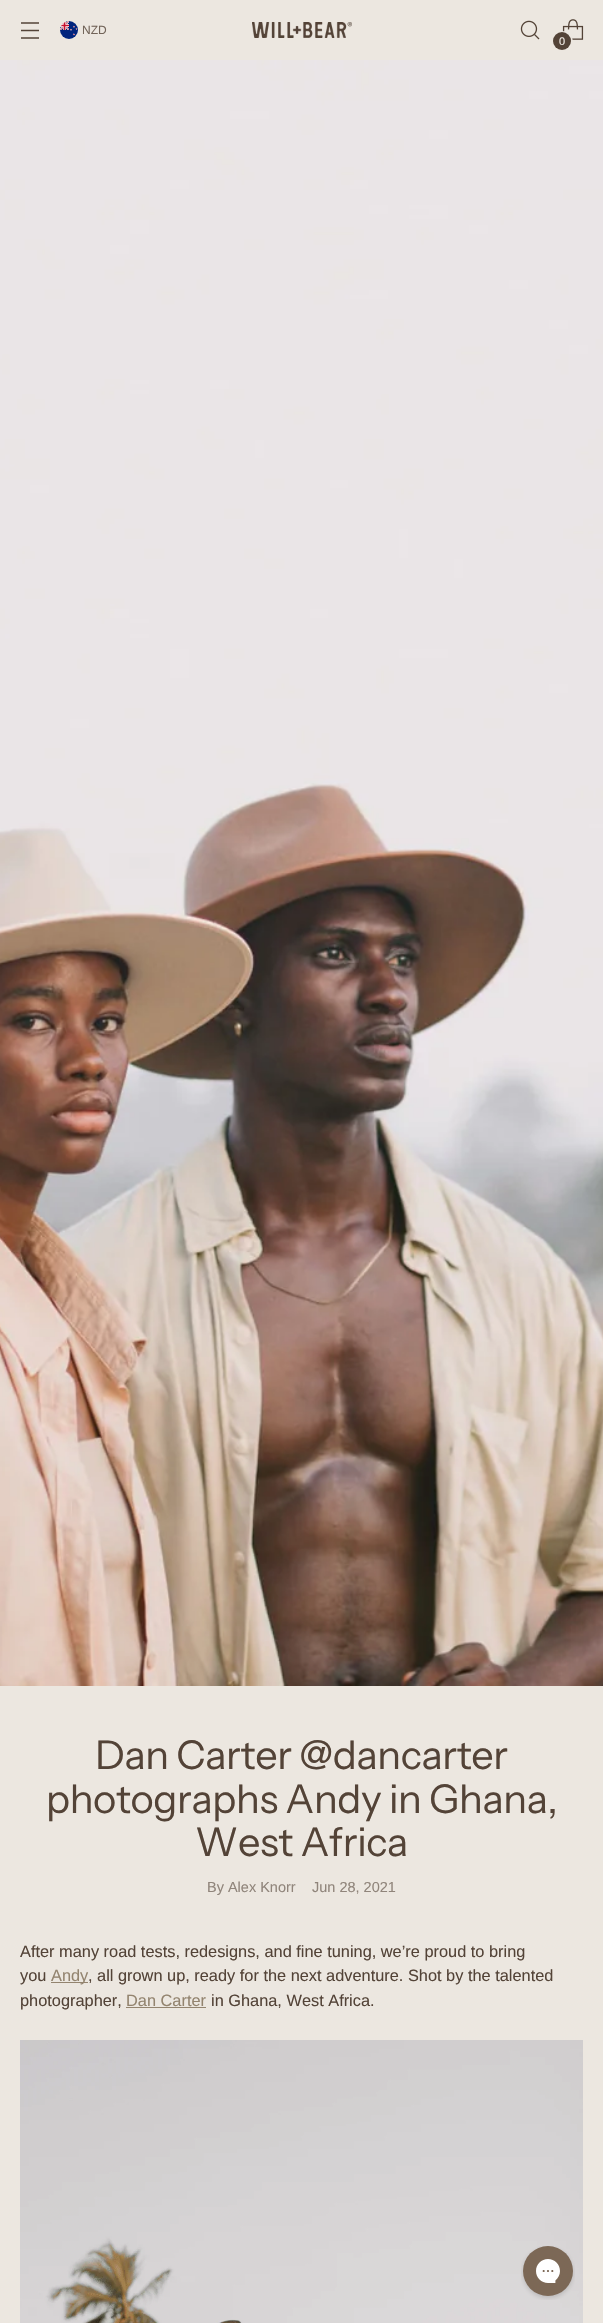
#include "include/core/SkBlurTypes.h"
#include "include/core/SkCanvas.h"
#include "include/core/SkData.h"
#include "include/core/SkFont.h"
#include "include/core/SkFontMgr.h"
#include "include/core/SkImage.h"
#include "include/core/SkMaskFilter.h"
#include "include/core/SkPaint.h"
#include "include/core/SkPathBuilder.h"
#include "include/core/SkTextBlob.h"
#include "include/effects/SkDashPathEffect.h"
#include "include/effects/SkGradientShader.h"
#include "include/utils/SkParsePath.h"

extern sk_sp<SkFontMgr> fontMgr;

void draw(SkCanvas* canvas) {
  SkPaint p;
  p.setAntiAlias(true);
  auto spacedText = [&](const char* s, float x, float y, const SkFont& font, const SkPaint& ink, float letter, float word) {
    std::vector<SkGlyphID> glyphs(font.countText(s, strlen(s), SkTextEncoding::kUTF8));
    std::vector<float> xs(glyphs.size());
    font.textToGlyphs(s, strlen(s), SkTextEncoding::kUTF8, glyphs);
    font.getXPos(glyphs, xs, x);
    float extra = 0;
    for (size_t i = 0; i < glyphs.size(); i++) {
      xs[i] += extra;
      extra += letter + word * (glyphs[i] == font.unicharToGlyph(' '));
    }
    canvas->drawTextBlob(SkTextBlob::MakeFromPosHGlyphs(glyphs, xs, y, font), 0, 0, ink);
  };
  canvas->clear(SkColorSetRGB(236, 231, 224));
  p.setStyle(SkPaint::kStroke_Style);
  p.setStrokeWidth(1.3f);
  p.setColor(SkColorSetRGB(83, 67, 55));
  canvas->drawPath(SkPathBuilder().moveTo(21, 30.5f).lineTo(39, 30.5f).moveTo(21, 23).lineTo(39, 23).moveTo(21, 38).lineTo(39, 38).detach(), p);
  canvas->drawImageRect(SkImages::DeferredFromEncodedData(SkData::MakeFromFileName("images/1.png")), SkRect::MakeLTRB(60, 21, 78, 39), SkSamplingOptions());
  canvas->drawImageRect(SkImages::DeferredFromEncodedData(SkData::MakeFromFileName("images/2.png")), SkRect::MakeLTRB(252, 22, 352, 38), SkSamplingOptions());
  canvas->drawImageRect(SkImages::DeferredFromEncodedData(SkData::MakeFromFileName("images/3.png")), SkRect::MakeLTRB(520, 20, 540, 40), SkSamplingOptions());
  canvas->drawImageRect(SkImages::DeferredFromEncodedData(SkData::MakeFromFileName("images/4.png")), SkRect::MakeLTRB(562, 19, 584, 40), SkSamplingOptions());
  p.setStrokeWidth(2);
  p.setColor(SkColorSetRGB(236, 231, 224));
  canvas->drawCircle(562.5f, 41.5f, 9.5f, p);
  p.setStyle(SkPaint::kFill_Style);
  p.setColor(SkColorSetRGB(83, 67, 55));
  canvas->drawCircle(562, 41, 9, p);
  canvas->drawImageRect(SkImages::DeferredFromEncodedData(SkData::MakeFromFileName("images/5.png")), SkRect::MakeLTRB(0, 60, 603, 1686), SkSamplingOptions());
  p.setColor(SkColorSetRGB(147, 132, 111));
  canvas->drawRect(SkRect::MakeLTRB(51, 1982, 88, 1983), p);
  canvas->drawRect(SkRect::MakeLTRB(126, 2007, 206, 2008), p);
  canvas->drawImageRect(SkImages::DeferredFromEncodedData(SkData::MakeFromFileName("images/6.png")), SkRect::MakeLTRB(20, 2040, 583, 2323), SkSamplingOptions());
  canvas->drawImageRect(SkImages::DeferredFromEncodedData(SkData::MakeFromFileName("images/7.png")), SkRect::MakeLTRB(521, 2246, 575, 2300), SkSamplingOptions());
  SkFont font1(fontMgr->matchFamilyStyle("Arimo", SkFontStyle::Normal()), 12);
  font1.setSubpixel(true);
  p.setColor(SkColorSetRGB(114, 100, 89));
  canvas->drawString("NZD", 82, 34, font1, p);
  SkFont font2(fontMgr->matchFamilyStyle("Arimo", SkFontStyle::Normal()), 11);
  font2.setSubpixel(true);
  p.setColor(SkColorSetRGB(236, 231, 224));
  canvas->drawString("0", 559, 45, font2, p);
  SkFont font3(fontMgr->matchFamilyStyle("Instrument Sans", SkFontStyle::Normal()), 39.75f);
  font3.setSubpixel(true);
  p.setColor(SkColorSetRGB(83, 67, 55));
  spacedText("Dan Carter @dancarter", 95, 1769, font3, p, -0.4f, 0);
  spacedText("photographs Andy in Ghana,", 46, 1813, font3, p, -0.4f, 0);
  spacedText("West Africa", 195, 1856, font3, p, -0.4f, 0);
  SkFont font4(fontMgr->matchFamilyStyle("Arimo", SkFontStyle::Normal()), 14.5f);
  font4.setSubpixel(true);
  p.setColor(SkColorSetRGB(144, 133, 123));
  canvas->drawString("By Alex Knorr", 207, 1892, font4, p);
  canvas->drawString("Jun 28, 2021", 312, 1892, font4, p);
  SkFont font5(fontMgr->matchFamilyStyle("Arimo", SkFontStyle::Normal()), 16.35f);
  font5.setSubpixel(true);
  p.setColor(SkColorSetRGB(83, 67, 55));
  canvas->drawString("After many road tests, redesigns, and fine tuning, we’re proud to bring", 20, 1957, font5, p);
  canvas->drawString("you", 20, 1981, font5, p);
  p.setColor(SkColorSetRGB(147, 132, 111));
  canvas->drawString("Andy", 51, 1981, font5, p);
  p.setColor(SkColorSetRGB(83, 67, 55));
  canvas->drawString(", all grown up, ready for the next adventure. Shot by the talented", 88, 1981, font5, p);
  canvas->drawString("photographer,", 20, 2006, font5, p);
  p.setColor(SkColorSetRGB(147, 132, 111));
  canvas->drawString("Dan Carter", 126, 2006, font5, p);
  p.setColor(SkColorSetRGB(83, 67, 55));
  canvas->drawString("in Ghana, West Africa.", 211, 2006, font5, p);
}
